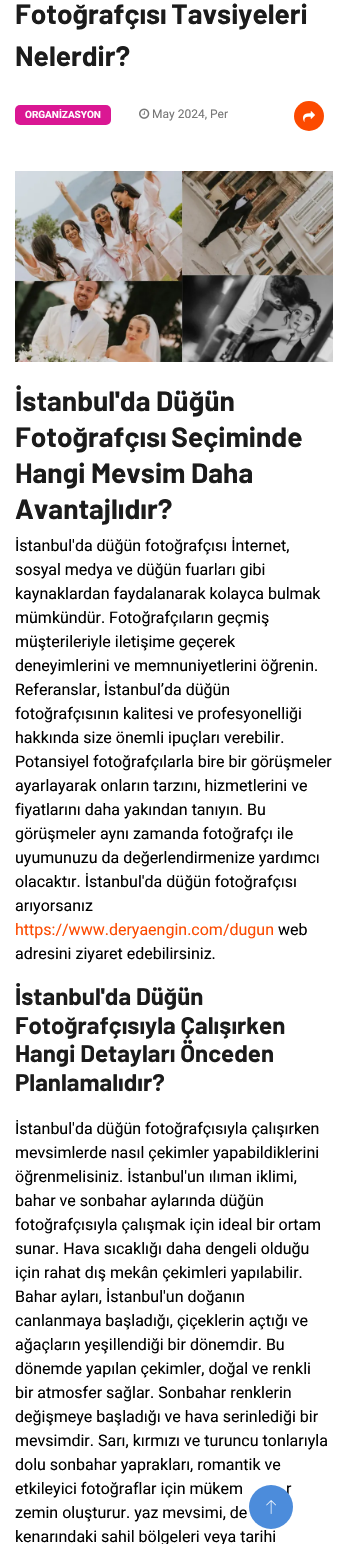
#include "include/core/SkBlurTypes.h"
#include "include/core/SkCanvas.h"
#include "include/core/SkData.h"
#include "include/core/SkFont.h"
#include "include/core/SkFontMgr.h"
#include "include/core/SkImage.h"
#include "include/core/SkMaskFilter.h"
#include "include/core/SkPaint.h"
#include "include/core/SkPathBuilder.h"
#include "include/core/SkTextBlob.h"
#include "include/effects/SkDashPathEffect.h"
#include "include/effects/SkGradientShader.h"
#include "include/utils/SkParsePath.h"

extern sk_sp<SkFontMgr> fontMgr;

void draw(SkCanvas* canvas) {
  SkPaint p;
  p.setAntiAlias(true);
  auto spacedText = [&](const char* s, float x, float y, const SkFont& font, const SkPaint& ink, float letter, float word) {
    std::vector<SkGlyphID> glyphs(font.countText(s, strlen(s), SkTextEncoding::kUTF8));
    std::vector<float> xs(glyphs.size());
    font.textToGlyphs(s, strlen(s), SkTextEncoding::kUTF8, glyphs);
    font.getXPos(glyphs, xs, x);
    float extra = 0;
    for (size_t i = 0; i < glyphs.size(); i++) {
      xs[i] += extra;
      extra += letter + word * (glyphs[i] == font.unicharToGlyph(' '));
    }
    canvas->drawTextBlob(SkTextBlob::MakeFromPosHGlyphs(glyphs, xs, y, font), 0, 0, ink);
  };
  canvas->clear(SK_ColorWHITE);
  p.setColor(SkColorSetRGB(218, 23, 147));
  canvas->drawRoundRect(SkRect::MakeLTRB(15, 105, 111, 125), 5, 5, p);
  canvas->drawImageRect(SkImages::DeferredFromEncodedData(SkData::MakeFromFileName("images/1.png")), SkRect::MakeLTRB(139, 108, 150, 119), SkSamplingOptions());
  p.setColor(SkColorSetRGB(252, 74, 0));
  canvas->drawCircle(309, 116, 15, p);
  canvas->drawImageRect(SkImages::DeferredFromEncodedData(SkData::MakeFromFileName("images/2.png")), SkRect::MakeLTRB(303, 111, 315, 122), SkSamplingOptions());
  canvas->drawImageRect(SkImages::DeferredFromEncodedData(SkData::MakeFromFileName("images/3.png")), SkRect::MakeLTRB(15, 171, 333, 362), SkSamplingOptions());
  SkFont font1(fontMgr->matchFamilyStyle("Barlow", SkFontStyle::Bold()), 28);
  font1.setSubpixel(true);
  p.setColor(SkColorSetRGB(28, 28, 28));
  spacedText("Fotoğrafçısı Tavsiyeleri", 15, 24, font1, p, 0, -1);
  canvas->drawString("Nelerdir?", 15, 66, font1, p);
  SkFont font2(fontMgr->matchFamilyStyle("Roboto", SkFontStyle::Bold()), 10);
  font2.setSubpixel(true);
  p.setColor(SK_ColorWHITE);
  canvas->drawString("ORGANİZASYON", 25, 118, font2, p);
  SkFont font3(fontMgr->matchFamilyStyle("Roboto", SkFontStyle::Normal()), 12);
  font3.setSubpixel(true);
  p.setColor(SkColorSetRGB(119, 119, 119));
  canvas->drawString("May 2024, Per", 152, 118, font3, p);
  p.setColor(SkColorSetRGB(28, 28, 28));
  canvas->drawString("İstanbul'da Düğün", 15, 411, font1, p);
  spacedText("Fotoğrafçısı Seçiminde", 15, 447, font1, p, 0, -1);
  canvas->drawString("Hangi Mevsim Daha", 15, 483, font1, p);
  canvas->drawString("Avantajlıdır?", 15, 519, font1, p);
  SkFont font4(fontMgr->matchFamilyStyle("Roboto", SkFontStyle::Normal()), 16);
  font4.setSubpixel(true);
  p.setColor(SK_ColorBLACK);
  canvas->drawString("İstanbul'da düğün fotoğrafçısı İnternet,", 15, 551, font4, p);
  canvas->drawString("sosyal medya ve düğün fuarları gibi", 15, 575, font4, p);
  canvas->drawString("kaynaklardan faydalanarak kolayca bulmak", 15, 599, font4, p);
  canvas->drawString("mümkündür. Fotoğrafçıların geçmiş", 15, 623, font4, p);
  canvas->drawString("müşterileriyle iletişime geçerek", 15, 647, font4, p);
  canvas->drawString("deneyimlerini ve memnuniyetlerini öğrenin.", 15, 671, font4, p);
  canvas->drawString("Referanslar, İstanbul’da düğün", 15, 695, font4, p);
  canvas->drawString("fotoğrafçısının kalitesi ve profesyonelliği", 15, 719, font4, p);
  canvas->drawString("hakkında size önemli ipuçları verebilir.", 15, 743, font4, p);
  canvas->drawString("Potansiyel fotoğrafçılarla bire bir görüşmeler", 15, 767, font4, p);
  canvas->drawString("ayarlayarak onların tarzını, hizmetlerini ve", 15, 791, font4, p);
  canvas->drawString("fiyatlarını daha yakından tanıyın. Bu", 15, 815, font4, p);
  canvas->drawString("görüşmeler aynı zamanda fotoğrafçı ile", 15, 839, font4, p);
  canvas->drawString("uyumunuzu da değerlendirmenize yardımcı", 15, 863, font4, p);
  canvas->drawString("olacaktır. İstanbul'da düğün fotoğrafçısı", 15, 887, font4, p);
  canvas->drawString("arıyorsanız", 15, 911, font4, p);
  p.setColor(SkColorSetRGB(252, 74, 0));
  canvas->drawString("https://www.deryaengin.com/dugun", 15, 935, font4, p);
  p.setColor(SK_ColorBLACK);
  canvas->drawString("web", 278, 935, font4, p);
  canvas->drawString("adresini ziyaret edebilirsiniz.", 15, 959, font4, p);
  SkFont font5(fontMgr->matchFamilyStyle("Barlow", SkFontStyle::Bold()), 24);
  font5.setSubpixel(true);
  p.setColor(SkColorSetRGB(28, 28, 28));
  canvas->drawString("İstanbul'da Düğün", 15, 1005, font5, p);
  canvas->drawString("Fotoğrafçısıyla Çalışırken", 15, 1034, font5, p);
  canvas->drawString("Hangi Detayları Önceden", 15, 1062, font5, p);
  canvas->drawString("Planlamalıdır?", 15, 1091, font5, p);
  p.setColor(SK_ColorBLACK);
  canvas->drawString("İstanbul'da düğün fotoğrafçısıyla çalışırken", 15, 1134, font4, p);
  canvas->drawString("mevsimlerde nasıl çekimler yapabildiklerini", 15, 1158, font4, p);
  canvas->drawString("öğrenmelisiniz. İstanbul'un ılıman iklimi,", 15, 1182, font4, p);
  canvas->drawString("bahar ve sonbahar aylarında düğün", 15, 1206, font4, p);
  canvas->drawString("fotoğrafçısıyla çalışmak için ideal bir ortam", 15, 1230, font4, p);
  canvas->drawString("sunar. Hava sıcaklığı daha dengeli olduğu", 15, 1254, font4, p);
  canvas->drawString("için rahat dış mekân çekimleri yapılabilir.", 15, 1278, font4, p);
  canvas->drawString("Bahar ayları, İstanbul'un doğanın", 15, 1302, font4, p);
  canvas->drawString("canlanmaya başladığı, çiçeklerin açtığı ve", 15, 1326, font4, p);
  canvas->drawString("ağaçların yeşillendiği bir dönemdir. Bu", 15, 1350, font4, p);
  canvas->drawString("dönemde yapılan çekimler, doğal ve renkli", 15, 1374, font4, p);
  canvas->drawString("bir atmosfer sağlar. Sonbahar renklerin", 15, 1398, font4, p);
  canvas->drawString("değişmeye başladığı ve hava serinlediği bir", 15, 1422, font4, p);
  canvas->drawString("mevsimdir. Sarı, kırmızı ve turuncu tonlarıyla", 15, 1446, font4, p);
  canvas->drawString("dolu sonbahar yaprakları, romantik ve", 15, 1470, font4, p);
  canvas->drawString("etkileyici fotoğraflar için mükem", 15, 1494, font4, p);
  canvas->drawString("r", 286, 1494, font4, p);
  canvas->drawString("zemin oluşturur. yaz mevsimi, de", 15, 1518, font4, p);
  canvas->drawString("kenarındaki sahil bölgeleri veya tarihi", 15, 1542, font4, p);
  p.setColor(SkColorSetRGB(76, 140, 219));
  canvas->drawCircle(271, 1507, 22, p);
  canvas->drawImageRect(SkImages::DeferredFromEncodedData(SkData::MakeFromFileName("images/4.png")), SkRect::MakeLTRB(266, 1500, 276, 1514), SkSamplingOptions());
}
